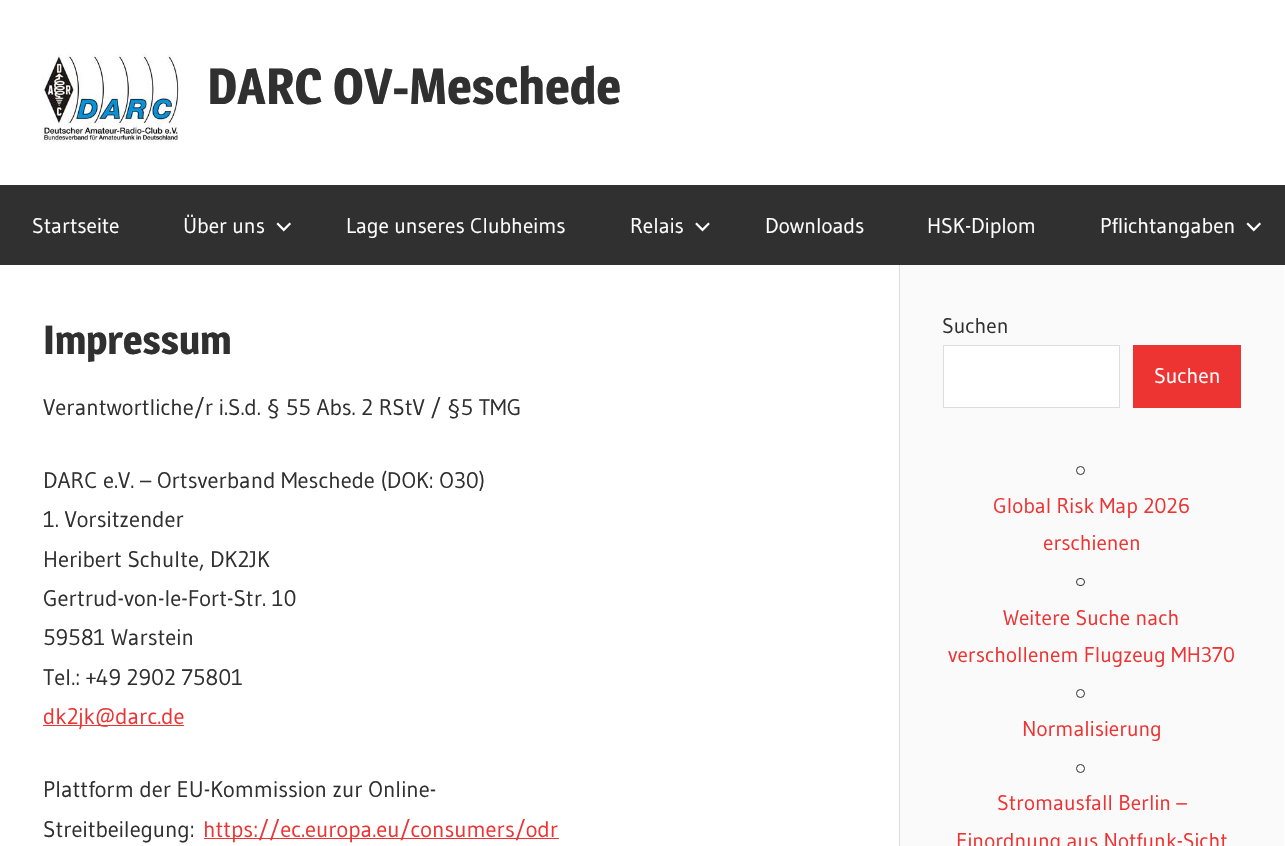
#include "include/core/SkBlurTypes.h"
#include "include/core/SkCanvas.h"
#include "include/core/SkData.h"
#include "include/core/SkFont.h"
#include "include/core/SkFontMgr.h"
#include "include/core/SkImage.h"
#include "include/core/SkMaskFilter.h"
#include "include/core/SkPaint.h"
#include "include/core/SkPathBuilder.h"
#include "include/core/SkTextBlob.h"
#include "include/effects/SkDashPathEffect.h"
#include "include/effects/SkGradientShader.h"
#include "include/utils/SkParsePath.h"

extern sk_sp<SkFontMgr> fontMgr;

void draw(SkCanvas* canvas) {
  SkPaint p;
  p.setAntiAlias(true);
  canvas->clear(SK_ColorWHITE);
  canvas->drawImageRect(SkImages::DeferredFromEncodedData(SkData::MakeFromFileName("images/1.png")), SkRect::MakeLTRB(42, 53, 179, 143), SkSamplingOptions());
  p.setColor(SkColorSetRGB(48, 48, 48));
  canvas->drawRect(SkRect::MakeLTRB(0, 185, 1285, 265), p);
  canvas->drawImageRect(SkImages::DeferredFromEncodedData(SkData::MakeFromFileName("images/2.png")), SkRect::MakeLTRB(276, 222, 291, 232), SkSamplingOptions());
  canvas->drawImageRect(SkImages::DeferredFromEncodedData(SkData::MakeFromFileName("images/3.png")), SkRect::MakeLTRB(695, 222, 710, 232), SkSamplingOptions());
  canvas->drawImageRect(SkImages::DeferredFromEncodedData(SkData::MakeFromFileName("images/2.png")), SkRect::MakeLTRB(1246, 222, 1261, 232), SkSamplingOptions());
  p.setColor(SkColorSetRGB(238, 51, 51));
  canvas->drawRect(SkRect::MakeLTRB(43, 725, 184, 726), p);
  canvas->drawRect(SkRect::MakeLTRB(204, 838, 559, 839), p);
  p.setColor(SkColorSetRGB(250, 250, 250));
  canvas->drawRect(SkRect::MakeLTRB(900, 265, 1284, 846), p);
  p.setColor(SkColorSetRGB(221, 221, 221));
  canvas->drawRect(SkRect::MakeLTRB(899, 265, 900, 846), p);
  p.setColor(SK_ColorWHITE);
  canvas->drawRect(SkRect::MakeLTRB(943.5f, 345.5f, 1119.5f, 407.5f), p);
  p.setStyle(SkPaint::kStroke_Style);
  p.setStrokeWidth(1);
  p.setColor(SkColorSetRGB(221, 221, 221));
  canvas->drawRect(SkRect::MakeLTRB(943.5f, 345.5f, 1119.5f, 407.5f), p);
  p.setStyle(SkPaint::kFill_Style);
  p.setColor(SkColorSetRGB(238, 51, 51));
  canvas->drawRect(SkRect::MakeLTRB(1133, 345, 1241, 408), p);
  p.setStyle(SkPaint::kStroke_Style);
  p.setColor(SkColorSetRGB(48, 48, 48));
  canvas->drawCircle(1080.5f, 470.5f, 4, p);
  canvas->drawRoundRect(SkRect::MakeLTRB(1076.5f, 578.5f, 1084.5f, 585.5f), 3.5f, 3.5f, p);
  canvas->drawCircle(1080.5f, 693.5f, 4, p);
  canvas->drawCircle(1080.5f, 768.5f, 4, p);
  SkFont font1(fontMgr->matchFamilyStyle("Magra", SkFontStyle::Bold()), 50);
  font1.setSubpixel(true);
  p.setStyle(SkPaint::kFill_Style);
  canvas->drawString("DARC OV-Meschede", 207, 104, font1, p);
  SkFont font2(fontMgr->matchFamilyStyle("Gudea", SkFontStyle::Normal()), 21.25f);
  font2.setSubpixel(true);
  p.setColor(SK_ColorWHITE);
  canvas->drawString("Startseite", 32, 233, font2, p);
  canvas->drawString("Über uns", 183, 233, font2, p);
  canvas->drawString("Lage unseres Clubheims", 346, 233, font2, p);
  canvas->drawString("Relais", 630, 233, font2, p);
  canvas->drawString("Downloads", 765, 233, font2, p);
  canvas->drawString("HSK-Diplom", 927, 233, font2, p);
  canvas->drawString("Pflichtangaben", 1100, 233, font2, p);
  SkFont font3(fontMgr->matchFamilyStyle("Magra", SkFontStyle::Bold()), 40);
  font3.setSubpixel(true);
  p.setColor(SkColorSetRGB(48, 48, 48));
  canvas->drawString("Impressum", 43, 354, font3, p);
  SkFont font4(fontMgr->matchFamilyStyle("Gudea", SkFontStyle::Normal()), 22.5f);
  font4.setSubpixel(true);
  canvas->drawString("Verantwortliche/r i.S.d. § 55 Abs. 2 RStV / §5 TMG", 43, 415, font4, p);
  canvas->drawString("DARC e.V. – Ortsverband Meschede (DOK: O30)", 43, 488, font4, p);
  canvas->drawString("1. Vorsitzender", 43, 527, font4, p);
  canvas->drawString("Heribert Schulte, DK2JK", 43, 567, font4, p);
  canvas->drawString("Gertrud-von-le-Fort-Str. 10", 43, 606, font4, p);
  canvas->drawString("59581 Warstein", 43, 645, font4, p);
  canvas->drawString("Tel.: +49 2902 75801", 43, 685, font4, p);
  p.setColor(SkColorSetRGB(238, 51, 51));
  canvas->drawString("dk2jk@darc.de", 43, 724, font4, p);
  p.setColor(SkColorSetRGB(48, 48, 48));
  canvas->drawString("Plattform der EU-Kommission zur Online-", 43, 797, font4, p);
  canvas->drawString("Streitbeilegung:", 43, 837, font4, p);
  p.setColor(SkColorSetRGB(238, 51, 51));
  canvas->drawString("https://ec.europa.eu/consumers/odr", 203, 837, font4, p);
  p.setColor(SkColorSetRGB(48, 48, 48));
  canvas->drawString("Suchen", 942, 333, font2, p);
  p.setColor(SK_ColorWHITE);
  canvas->drawString("Suchen", 1154, 383, font2, p);
  p.setColor(SkColorSetRGB(238, 51, 51));
  canvas->drawString("Global Risk Map 2026", 993, 513, font2, p);
  canvas->drawString("erschienen", 1043, 550, font2, p);
  canvas->drawString("Weitere Suche nach", 1003, 625, font2, p);
  canvas->drawString("verschollenem Flugzeug MH370", 948, 662, font2, p);
  canvas->drawString("Normalisierung", 1022, 736, font2, p);
  canvas->drawString("Stromausfall Berlin –", 997, 810, font2, p);
  canvas->drawString("Einordnung aus Notfunk-Sicht", 956, 848, font2, p);
}
